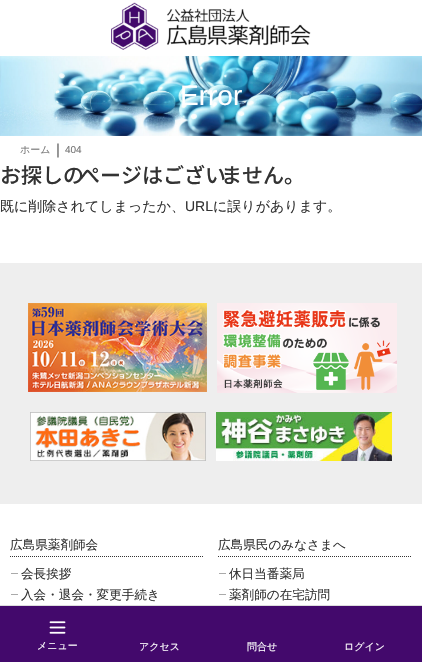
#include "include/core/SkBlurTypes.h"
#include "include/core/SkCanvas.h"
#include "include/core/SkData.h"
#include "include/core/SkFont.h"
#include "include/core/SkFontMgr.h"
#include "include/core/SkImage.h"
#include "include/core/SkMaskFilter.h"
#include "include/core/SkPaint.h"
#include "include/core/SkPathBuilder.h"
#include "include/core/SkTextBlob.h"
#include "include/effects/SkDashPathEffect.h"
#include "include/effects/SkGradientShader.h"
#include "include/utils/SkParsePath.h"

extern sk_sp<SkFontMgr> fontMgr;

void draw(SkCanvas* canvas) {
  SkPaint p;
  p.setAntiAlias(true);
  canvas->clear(SK_ColorWHITE);
  canvas->drawImageRect(SkImages::DeferredFromEncodedData(SkData::MakeFromFileName("images/1.png")), SkRect::MakeLTRB(111, 2, 311, 50), SkSamplingOptions());
  canvas->drawImageRect(SkImages::DeferredFromEncodedData(SkData::MakeFromFileName("images/2.png")), SkRect::MakeLTRB(0, 56, 422, 136), SkSamplingOptions());
  p.setColor(SkColorSetRGB(238, 238, 238));
  canvas->drawRect(SkRect::MakeLTRB(0, 263, 422, 504), p);
  canvas->drawImageRect(SkImages::DeferredFromEncodedData(SkData::MakeFromFileName("images/3.png")), SkRect::MakeLTRB(28, 303, 207, 392), SkSamplingOptions());
  canvas->drawImageRect(SkImages::DeferredFromEncodedData(SkData::MakeFromFileName("images/4.png")), SkRect::MakeLTRB(217, 303, 397, 393), SkSamplingOptions());
  canvas->drawImageRect(SkImages::DeferredFromEncodedData(SkData::MakeFromFileName("images/5.png")), SkRect::MakeLTRB(30, 412, 206, 461), SkSamplingOptions());
  canvas->drawImageRect(SkImages::DeferredFromEncodedData(SkData::MakeFromFileName("images/6.png")), SkRect::MakeLTRB(216, 412, 392, 461), SkSamplingOptions());
  p.setStyle(SkPaint::kStroke_Style);
  p.setStrokeWidth(1);
  p.setColor(SkColorSetRGB(51, 51, 51));
  p.setPathEffect(SkDashPathEffect::Make({{1, 1}}, 0));
  canvas->drawPath(SkPathBuilder().moveTo(10, 556.5f).lineTo(204, 556.5f).detach(), p);
  p.setPathEffect(nullptr);
  p.setStyle(SkPaint::kFill_Style);
  p.setColor(SkColorSetRGB(170, 170, 170));
  canvas->drawRect(SkRect::MakeLTRB(11, 573, 18, 574), p);
  canvas->drawRect(SkRect::MakeLTRB(11, 594, 18, 595), p);
  p.setStyle(SkPaint::kStroke_Style);
  p.setColor(SkColorSetRGB(51, 51, 51));
  p.setPathEffect(SkDashPathEffect::Make({{1, 1}}, 0));
  canvas->drawPath(SkPathBuilder().moveTo(218, 556.5f).lineTo(412, 556.5f).detach(), p);
  p.setPathEffect(nullptr);
  p.setStyle(SkPaint::kFill_Style);
  p.setColor(SkColorSetRGB(170, 170, 170));
  canvas->drawRect(SkRect::MakeLTRB(219, 573, 226, 574), p);
  canvas->drawRect(SkRect::MakeLTRB(219, 594, 226, 595), p);
  p.setColor(SkColorSetRGB(67, 9, 108));
  canvas->drawRect(SkRect::MakeLTRB(0, 606, 422, 662), p);
  p.setColor(SkColorSetRGB(221, 221, 221));
  canvas->drawRect(SkRect::MakeLTRB(0, 605, 422, 606), p);
  canvas->drawImageRect(SkImages::DeferredFromEncodedData(SkData::MakeFromFileName("images/7.png")), SkRect::MakeLTRB(49, 621, 66, 634), SkSamplingOptions());
  SkFont font1(fontMgr->matchFamilyStyle("Liberation Sans", SkFontStyle::Normal()), 28);
  font1.setSubpixel(true);
  p.setColor(SK_ColorWHITE);
  canvas->drawString("Error", 180, 105, font1, p);
  SkFont font2(fontMgr->matchFamilyStyle("WenQuanYi Zen Hei", SkFontStyle(500, SkFontStyle::kNormal_Width, SkFontStyle::kUpright_Slant)), 10);
  font2.setSubpixel(true);
  p.setColor(SkColorSetRGB(119, 119, 119));
  canvas->drawString("ホーム", 20, 153, font2, p);
  SkFont font3(fontMgr->matchFamilyStyle("WenQuanYi Zen Hei", SkFontStyle(500, SkFontStyle::kNormal_Width, SkFontStyle::kUpright_Slant)), 14);
  font3.setSubpixel(true);
  p.setColor(SkColorSetRGB(51, 51, 51));
  canvas->drawString("｜", 51, 154, font3, p);
  SkFont font4(fontMgr->matchFamilyStyle("Liberation Sans", SkFontStyle::Normal()), 10);
  font4.setSubpixel(true);
  p.setColor(SkColorSetRGB(119, 119, 119));
  canvas->drawString("404", 65, 153, font4, p);
  SkFont font5(fontMgr->matchFamilyStyle("Noto Sans JP", SkFontStyle(500, SkFontStyle::kNormal_Width, SkFontStyle::kUpright_Slant)), 21);
  font5.setSubpixel(true);
  p.setColor(SkColorSetRGB(51, 51, 51));
  canvas->drawString("お探しの", 0, 183, font5, p);
  canvas->drawString("ぺージはござい", 79, 183, font5, p);
  canvas->drawString("ません。", 221, 183, font5, p);
  canvas->drawString("既に削除されてしまったか、", 0, 211, font3, p);
  SkFont font6(fontMgr->matchFamilyStyle("Liberation Sans", SkFontStyle::Normal()), 14);
  font6.setSubpixel(true);
  canvas->drawString("URL", 185, 211, font6, p);
  canvas->drawString("に誤りがあります。", 213, 211, font3, p);
  SkFont font7(fontMgr->matchFamilyStyle("WenQuanYi Zen Hei", SkFontStyle(500, SkFontStyle::kNormal_Width, SkFontStyle::kUpright_Slant)), 12.6f);
  font7.setSubpixel(true);
  canvas->drawString("広島県薬剤師会", 10, 549, font7, p);
  canvas->drawString("会長挨拶", 21, 578, font7, p);
  canvas->drawString("入会・退会・変更手続き", 21, 599, font7, p);
  canvas->drawString("広島県民のみなさまへ", 218, 549, font7, p);
  canvas->drawString("休日当番薬局", 229, 578, font7, p);
  canvas->drawString("薬剤師の在宅訪問", 229, 599, font7, p);
  p.setColor(SK_ColorWHITE);
  canvas->drawString("メニュー", 37, 649, font2, p);
  canvas->drawString("アクセス", 139, 650, font2, p);
  canvas->drawString("問合せ", 247, 650, font2, p);
  canvas->drawString("ログイン", 344, 650, font2, p);
}
